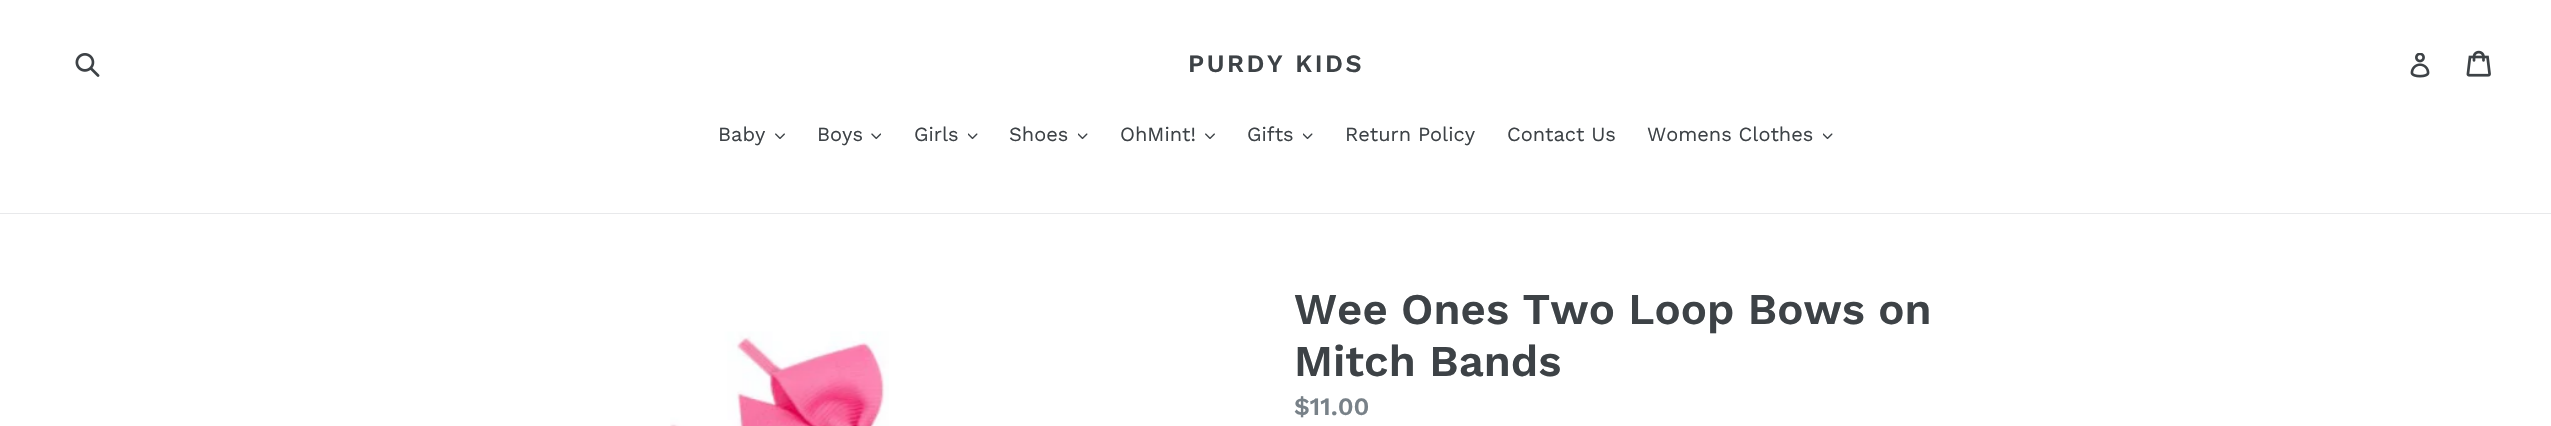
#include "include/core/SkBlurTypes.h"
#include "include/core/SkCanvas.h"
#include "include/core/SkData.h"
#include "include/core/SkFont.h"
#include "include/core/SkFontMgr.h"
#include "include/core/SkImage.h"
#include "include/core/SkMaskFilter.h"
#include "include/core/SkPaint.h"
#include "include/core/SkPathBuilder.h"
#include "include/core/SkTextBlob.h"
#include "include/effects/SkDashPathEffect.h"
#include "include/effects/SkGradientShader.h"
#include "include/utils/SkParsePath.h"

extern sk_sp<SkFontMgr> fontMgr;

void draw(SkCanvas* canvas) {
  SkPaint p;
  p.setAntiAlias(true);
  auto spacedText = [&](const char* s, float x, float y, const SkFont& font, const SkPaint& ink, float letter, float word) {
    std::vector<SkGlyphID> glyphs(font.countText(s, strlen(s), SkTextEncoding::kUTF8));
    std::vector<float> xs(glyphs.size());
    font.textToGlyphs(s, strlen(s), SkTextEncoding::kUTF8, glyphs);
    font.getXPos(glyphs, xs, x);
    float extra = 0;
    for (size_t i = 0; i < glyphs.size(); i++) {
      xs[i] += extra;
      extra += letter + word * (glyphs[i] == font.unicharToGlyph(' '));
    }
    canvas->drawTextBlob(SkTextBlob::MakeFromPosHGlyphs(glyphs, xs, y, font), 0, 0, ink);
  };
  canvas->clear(SK_ColorWHITE);
  canvas->drawImageRect(SkImages::DeferredFromEncodedData(SkData::MakeFromFileName("images/1.png")), SkRect::MakeLTRB(75, 53, 100, 77), SkSamplingOptions());
  canvas->drawImageRect(SkImages::DeferredFromEncodedData(SkData::MakeFromFileName("images/2.png")), SkRect::MakeLTRB(2410, 53, 2430, 78), SkSamplingOptions());
  canvas->drawImageRect(SkImages::DeferredFromEncodedData(SkData::MakeFromFileName("images/3.png")), SkRect::MakeLTRB(2466, 50, 2491, 77), SkSamplingOptions());
  p.setColor(SkColorSetRGB(232, 233, 235));
  canvas->drawRect(SkRect::MakeLTRB(0, 213, 2551, 214), p);
  canvas->drawImageRect(SkImages::DeferredFromEncodedData(SkData::MakeFromFileName("images/4.png")), SkRect::MakeLTRB(775, 133, 785, 139), SkSamplingOptions());
  canvas->drawImageRect(SkImages::DeferredFromEncodedData(SkData::MakeFromFileName("images/5.png")), SkRect::MakeLTRB(871, 133, 881, 140), SkSamplingOptions());
  canvas->drawImageRect(SkImages::DeferredFromEncodedData(SkData::MakeFromFileName("images/6.png")), SkRect::MakeLTRB(968, 133, 978, 140), SkSamplingOptions());
  canvas->drawImageRect(SkImages::DeferredFromEncodedData(SkData::MakeFromFileName("images/6.png")), SkRect::MakeLTRB(1078, 133, 1088, 140), SkSamplingOptions());
  canvas->drawImageRect(SkImages::DeferredFromEncodedData(SkData::MakeFromFileName("images/4.png")), SkRect::MakeLTRB(1205, 133, 1215, 139), SkSamplingOptions());
  canvas->drawImageRect(SkImages::DeferredFromEncodedData(SkData::MakeFromFileName("images/6.png")), SkRect::MakeLTRB(1303, 133, 1313, 140), SkSamplingOptions());
  canvas->drawImageRect(SkImages::DeferredFromEncodedData(SkData::MakeFromFileName("images/6.png")), SkRect::MakeLTRB(1823, 133, 1833, 140), SkSamplingOptions());
  canvas->drawImageRect(SkImages::DeferredFromEncodedData(SkData::MakeFromFileName("images/7.png")), SkRect::MakeLTRB(670, 331, 889, 426), SkSamplingOptions());
  SkFont font1(fontMgr->matchFamilyStyle("Work Sans", SkFontStyle(600, SkFontStyle::kNormal_Width, SkFontStyle::kUpright_Slant)), 25);
  font1.setSubpixel(true);
  p.setColor(SkColorSetRGB(61, 66, 70));
  spacedText("PURDY KIDS", 1188, 72, font1, p, 2.5f, 0);
  SkFont font2(fontMgr->matchFamilyStyle("Work Sans", SkFontStyle::Normal()), 20);
  font2.setSubpixel(true);
  canvas->drawString("Baby", 718, 141, font2, p);
  canvas->drawString("Boys", 817, 141, font2, p);
  canvas->drawString("Girls", 914, 141, font2, p);
  canvas->drawString("Shoes", 1009, 141, font2, p);
  canvas->drawString("OhMint!", 1120, 141, font2, p);
  canvas->drawString("Gifts", 1247, 141, font2, p);
  canvas->drawString("Return Policy", 1345, 141, font2, p);
  canvas->drawString("Contact Us", 1507, 141, font2, p);
  canvas->drawString("Womens Clothes", 1647, 141, font2, p);
  SkFont font3(fontMgr->matchFamilyStyle("Work Sans", SkFontStyle(600, SkFontStyle::kNormal_Width, SkFontStyle::kUpright_Slant)), 43.75f);
  font3.setSubpixel(true);
  canvas->drawString("Wee Ones Two Loop Bows on", 1294, 324, font3, p);
  canvas->drawString("Mitch Bands", 1294, 376, font3, p);
  p.setColor(SkColorSetRGB(120, 129, 136));
  canvas->drawString("$11.00", 1294, 415, font1, p);
}
